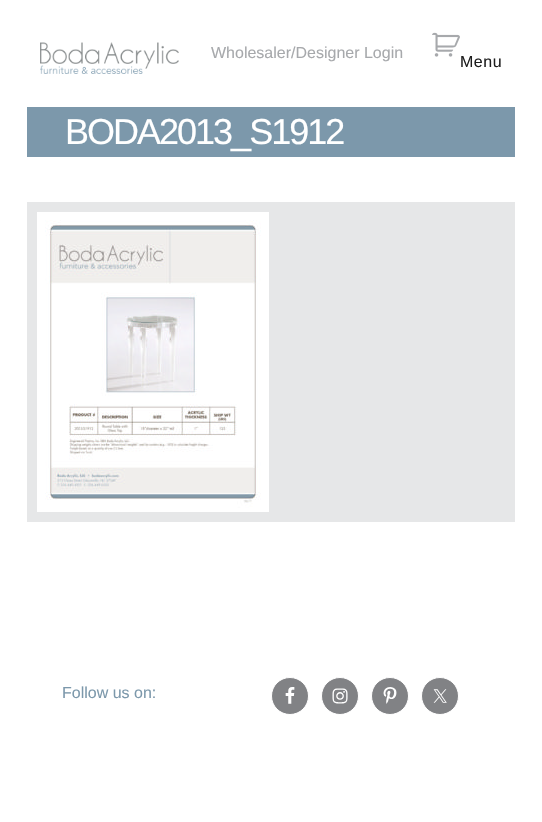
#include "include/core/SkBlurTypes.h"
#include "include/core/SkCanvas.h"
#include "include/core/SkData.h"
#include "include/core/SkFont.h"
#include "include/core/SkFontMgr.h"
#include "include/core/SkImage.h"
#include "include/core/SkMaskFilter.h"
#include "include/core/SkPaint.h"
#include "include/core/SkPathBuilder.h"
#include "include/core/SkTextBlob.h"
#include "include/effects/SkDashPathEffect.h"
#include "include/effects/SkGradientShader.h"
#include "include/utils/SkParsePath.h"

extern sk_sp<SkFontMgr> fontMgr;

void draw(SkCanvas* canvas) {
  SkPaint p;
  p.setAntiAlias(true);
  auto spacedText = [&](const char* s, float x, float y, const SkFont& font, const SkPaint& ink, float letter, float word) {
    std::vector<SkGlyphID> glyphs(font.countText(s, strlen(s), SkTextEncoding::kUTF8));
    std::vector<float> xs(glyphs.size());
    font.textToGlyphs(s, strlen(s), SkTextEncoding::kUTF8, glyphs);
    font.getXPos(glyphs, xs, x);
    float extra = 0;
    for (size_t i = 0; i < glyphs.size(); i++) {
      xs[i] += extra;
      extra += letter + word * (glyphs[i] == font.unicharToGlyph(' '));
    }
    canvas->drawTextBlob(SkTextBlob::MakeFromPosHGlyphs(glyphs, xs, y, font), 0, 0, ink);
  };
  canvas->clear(SK_ColorWHITE);
  canvas->drawImageRect(SkImages::DeferredFromEncodedData(SkData::MakeFromFileName("images/1.png")), SkRect::MakeLTRB(40, 42, 179, 74), SkSamplingOptions());
  canvas->drawImageRect(SkImages::DeferredFromEncodedData(SkData::MakeFromFileName("images/2.png")), SkRect::MakeLTRB(432, 32, 460, 57), SkSamplingOptions());
  p.setColor(SkColorSetRGB(124, 152, 171));
  canvas->drawRect(SkRect::MakeLTRB(27, 107, 515, 157), p);
  p.setColor(SkColorSetRGB(230, 231, 232));
  canvas->drawRect(SkRect::MakeLTRB(27, 202, 515, 522), p);
  canvas->drawImageRect(SkImages::DeferredFromEncodedData(SkData::MakeFromFileName("images/3.png")), SkRect::MakeLTRB(37, 212, 269, 512), SkSamplingOptions());
  p.setColor(SkColorSetRGB(129, 130, 133));
  canvas->drawCircle(290, 696, 18.5f, p);
  p.setStyle(SkPaint::kStroke_Style);
  p.setStrokeWidth(1);
  p.setColor(SK_ColorWHITE);
  canvas->drawCircle(290, 696, 18.5f, p);
  canvas->drawImageRect(SkImages::DeferredFromEncodedData(SkData::MakeFromFileName("images/4.png")), SkRect::MakeLTRB(285, 687, 295, 704), SkSamplingOptions());
  p.setStyle(SkPaint::kFill_Style);
  p.setColor(SkColorSetRGB(129, 130, 133));
  canvas->drawCircle(340, 696, 18.5f, p);
  p.setStyle(SkPaint::kStroke_Style);
  p.setColor(SK_ColorWHITE);
  canvas->drawCircle(340, 696, 18.5f, p);
  canvas->drawImageRect(SkImages::DeferredFromEncodedData(SkData::MakeFromFileName("images/5.png")), SkRect::MakeLTRB(332, 688, 348, 704), SkSamplingOptions());
  p.setStyle(SkPaint::kFill_Style);
  p.setColor(SkColorSetRGB(129, 130, 133));
  canvas->drawCircle(390, 696, 18.5f, p);
  p.setStyle(SkPaint::kStroke_Style);
  p.setColor(SK_ColorWHITE);
  canvas->drawCircle(390, 696, 18.5f, p);
  canvas->drawImageRect(SkImages::DeferredFromEncodedData(SkData::MakeFromFileName("images/6.png")), SkRect::MakeLTRB(383, 687, 397, 704), SkSamplingOptions());
  p.setStyle(SkPaint::kFill_Style);
  p.setColor(SkColorSetRGB(129, 130, 133));
  canvas->drawCircle(440, 696, 18.5f, p);
  p.setStyle(SkPaint::kStroke_Style);
  p.setColor(SK_ColorWHITE);
  canvas->drawCircle(440, 696, 18.5f, p);
  canvas->drawImageRect(SkImages::DeferredFromEncodedData(SkData::MakeFromFileName("images/7.png")), SkRect::MakeLTRB(433, 689, 447, 703), SkSamplingOptions());
  SkFont font1(fontMgr->matchFamilyStyle("Liberation Sans", SkFontStyle::Normal()), 16);
  font1.setSubpixel(true);
  p.setStyle(SkPaint::kFill_Style);
  p.setColor(SkColorSetRGB(167, 169, 172));
  canvas->drawString("Wholesaler/Designer Login", 211, 58, font1, p);
  p.setColor(SkColorSetRGB(30, 30, 30));
  spacedText("Menu", 460, 67, font1, p, 0.5f, 0);
  SkFont font2(fontMgr->matchFamilyStyle("Liberation Sans", SkFontStyle::Normal()), 36);
  font2.setSubpixel(true);
  p.setColor(SK_ColorWHITE);
  spacedText("BODA2013_S1912", 65, 144, font2, p, -2, 0);
  p.setColor(SkColorSetRGB(124, 152, 171));
  canvas->drawString("Follow us on:", 62, 698, font1, p);
}
